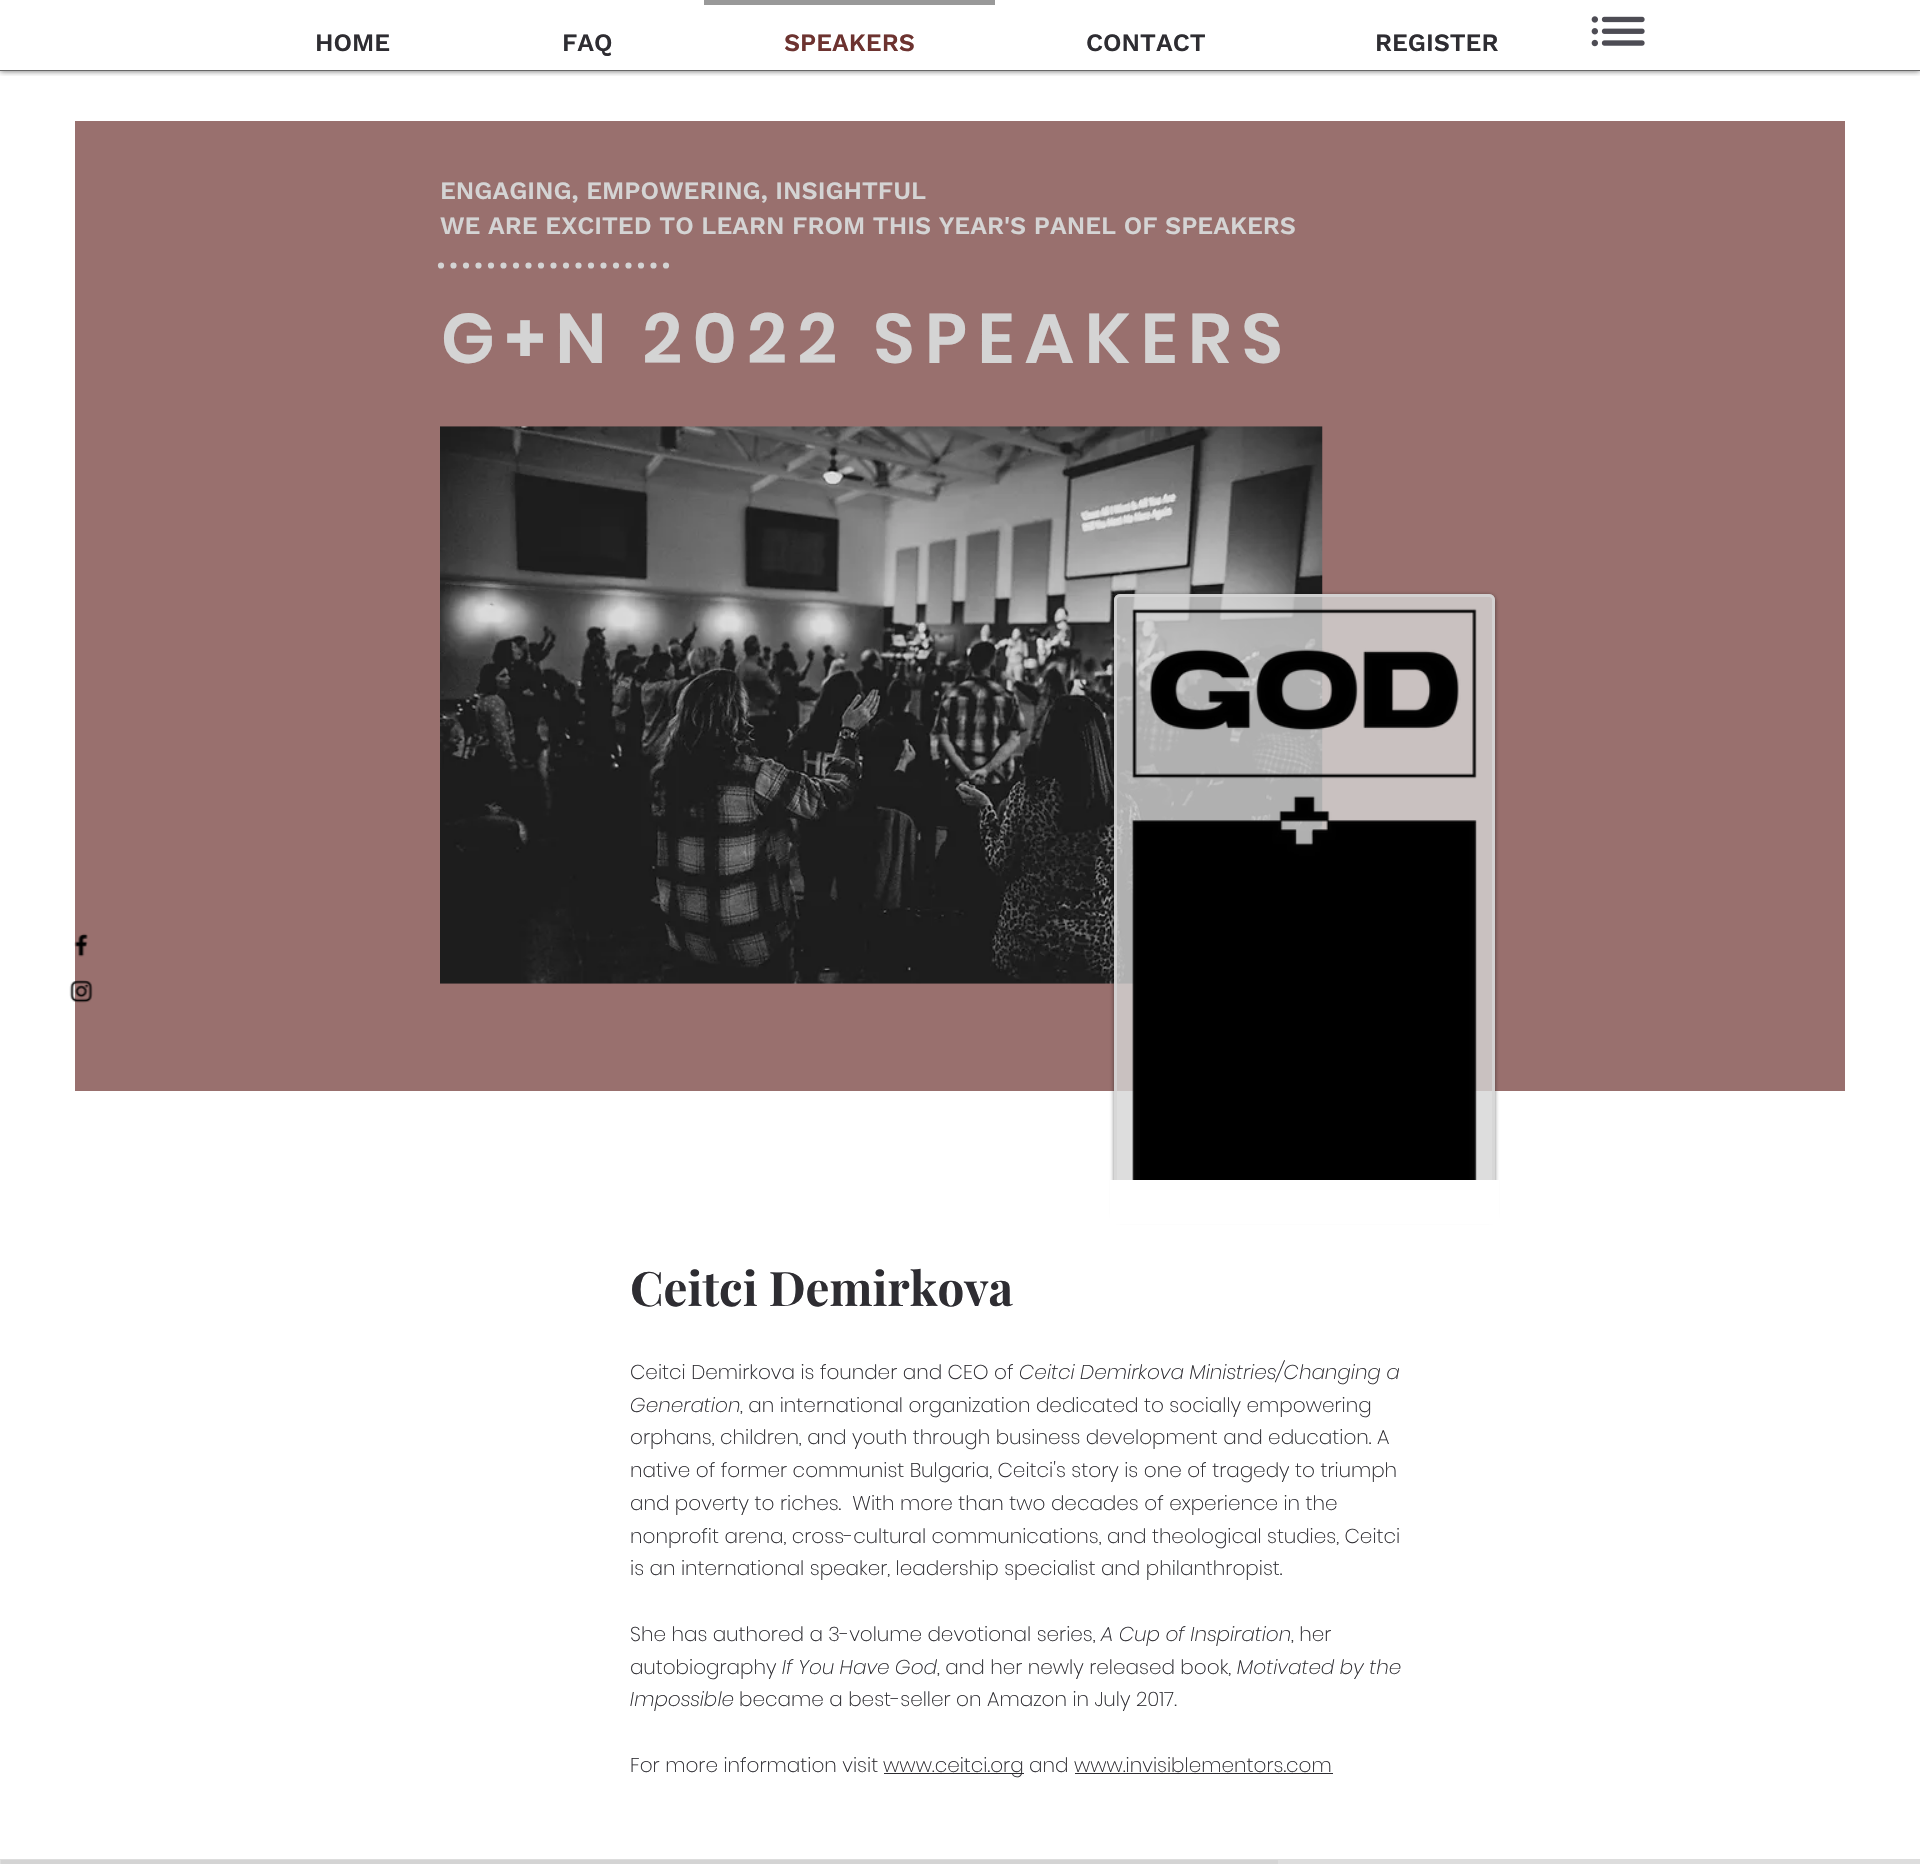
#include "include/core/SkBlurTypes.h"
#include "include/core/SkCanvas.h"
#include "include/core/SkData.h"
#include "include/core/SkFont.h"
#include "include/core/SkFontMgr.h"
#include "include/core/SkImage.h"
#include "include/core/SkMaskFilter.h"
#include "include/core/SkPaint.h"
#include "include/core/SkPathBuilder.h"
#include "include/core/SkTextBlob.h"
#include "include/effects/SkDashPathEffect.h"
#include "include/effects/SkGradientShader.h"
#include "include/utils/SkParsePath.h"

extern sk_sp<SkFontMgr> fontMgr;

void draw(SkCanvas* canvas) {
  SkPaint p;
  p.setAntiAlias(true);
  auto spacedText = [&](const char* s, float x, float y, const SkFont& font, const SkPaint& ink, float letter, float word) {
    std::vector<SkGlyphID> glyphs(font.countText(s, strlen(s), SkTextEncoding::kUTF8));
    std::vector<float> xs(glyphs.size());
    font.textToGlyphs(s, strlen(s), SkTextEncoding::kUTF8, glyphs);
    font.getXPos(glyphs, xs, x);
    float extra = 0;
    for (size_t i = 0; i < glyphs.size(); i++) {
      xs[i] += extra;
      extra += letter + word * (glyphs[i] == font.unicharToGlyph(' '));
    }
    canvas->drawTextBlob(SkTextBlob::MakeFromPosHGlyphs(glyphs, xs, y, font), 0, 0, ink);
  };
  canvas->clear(SK_ColorWHITE);
  canvas->save();
  canvas->clipRect(SkRect::MakeLTRB(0, 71, 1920, 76));
  p.setColor(SkColorSetARGB(153, 0, 0, 0));
  p.setMaskFilter(SkMaskFilter::MakeBlur(kNormal_SkBlurStyle, 3));
  canvas->drawRect(SkRect::MakeLTRB(0, 0, 1920, 71), p);
  p.setMaskFilter(nullptr);
  canvas->restore();
  p.setColor(SkColorSetRGB(102, 102, 102));
  canvas->drawRect(SkRect::MakeLTRB(0, 70, 1920, 71), p);
  p.setColor(SkColorSetRGB(153, 153, 153));
  canvas->drawRect(SkRect::MakeLTRB(704, 0, 995, 5), p);
  canvas->drawImageRect(SkImages::DeferredFromEncodedData(SkData::MakeFromFileName("images/1.png")), SkRect::MakeLTRB(1591, 16, 1645, 47), SkSamplingOptions());
  p.setColor(SkColorSetRGB(153, 112, 110));
  canvas->drawRect(SkRect::MakeLTRB(75, 121, 1845, 1091), p);
  canvas->drawImageRect(SkImages::DeferredFromEncodedData(SkData::MakeFromFileName("images/2.png")), SkRect::MakeLTRB(74, 933, 88, 957), SkSamplingOptions());
  canvas->drawImageRect(SkImages::DeferredFromEncodedData(SkData::MakeFromFileName("images/3.png")), SkRect::MakeLTRB(69, 980, 93, 1003), SkSamplingOptions());
  p.setStyle(SkPaint::kStroke_Style);
  p.setStrokeWidth(6.2f);
  p.setStrokeCap(SkPaint::kRound_Cap);
  p.setColor(SkColorSetRGB(212, 212, 212));
  p.setPathEffect(SkDashPathEffect::Make({{0, 12.5f}}, 0));
  canvas->drawPath(SkPathBuilder().moveTo(441, 265.5f).lineTo(677.5f, 265.5f).detach(), p);
  p.setPathEffect(nullptr);
  canvas->drawImageRect(SkImages::DeferredFromEncodedData(SkData::MakeFromFileName("images/4.png")), SkRect::MakeLTRB(440, 426, 1323, 984), SkSamplingOptions());
  canvas->save();
  canvas->clipPath(SkPathBuilder(SkPathFillType::kEvenOdd).moveTo(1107, 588).lineTo(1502, 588).lineTo(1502, 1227).lineTo(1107, 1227).close().moveTo(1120, 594).lineTo(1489, 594).cubicTo(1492.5f, 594, 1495, 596.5f, 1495, 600).lineTo(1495, 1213).cubicTo(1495, 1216.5f, 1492.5f, 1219, 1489, 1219).lineTo(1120, 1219).cubicTo(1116.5f, 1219, 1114, 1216.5f, 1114, 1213).lineTo(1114, 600).cubicTo(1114, 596.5f, 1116.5f, 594, 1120, 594).close().detach(), true);
  p.setStyle(SkPaint::kFill_Style);
  p.setColor(SkColorSetARGB(128, 0, 0, 0));
  p.setMaskFilter(SkMaskFilter::MakeBlur(kNormal_SkBlurStyle, 2));
  canvas->drawRoundRect(SkRect::MakeLTRB(1114, 595, 1495, 1220), 6, 6, p);
  p.setMaskFilter(nullptr);
  canvas->restore();
  p.setColor(SkColorSetARGB(204, 212, 212, 212));
  canvas->drawRoundRect(SkRect::MakeLTRB(1114, 594, 1495, 1219), 6, 6, p);
  p.setStyle(SkPaint::kStroke_Style);
  p.setStrokeWidth(3);
  p.setStrokeCap(SkPaint::kButt_Cap);
  canvas->drawRoundRect(SkRect::MakeLTRB(1115.5f, 595.5f, 1493.5f, 1217.5f), 4.5f, 4.5f, p);
  canvas->drawImageRect(SkImages::DeferredFromEncodedData(SkData::MakeFromFileName("images/5.png")), SkRect::MakeLTRB(1132, 608, 1477, 1180), SkSamplingOptions());
  p.setStyle(SkPaint::kFill_Style);
  p.setColor(SK_ColorWHITE);
  canvas->drawRect(SkRect::MakeLTRB(1110, 1180, 1499, 1224), p);
  p.setColor(SkColorSetRGB(46, 45, 50));
  canvas->drawRect(SkRect::MakeLTRB(884, 1773, 1024, 1774), p);
  canvas->drawRect(SkRect::MakeLTRB(1075, 1773, 1333, 1774), p);
  p.setColor(SkColorSetRGB(221, 221, 221));
  canvas->drawRect(SkRect::MakeLTRB(0, 1859, 1920, 1864), p);
  p.setColor(SkColorSetRGB(212, 212, 212));
  canvas->drawRect(SkRect::MakeLTRB(1, 1860, 1278, 1864), p);
  SkFont font1(fontMgr->matchFamilyStyle("Work Sans", SkFontStyle(600, SkFontStyle::kNormal_Width, SkFontStyle::kUpright_Slant)), 25);
  font1.setSubpixel(true);
  p.setColor(SkColorSetRGB(46, 45, 50));
  canvas->drawString("HOME", 315, 51, font1, p);
  canvas->drawString("FAQ", 562, 51, font1, p);
  p.setColor(SkColorSetRGB(109, 51, 48));
  canvas->drawString("SPEAKERS", 784, 51, font1, p);
  p.setColor(SkColorSetRGB(46, 45, 50));
  canvas->drawString("CONTACT", 1086, 51, font1, p);
  canvas->drawString("REGISTER", 1375, 51, font1, p);
  p.setColor(SkColorSetRGB(212, 212, 212));
  canvas->drawString("ENGAGING, EMPOWERING, INSIGHTFUL", 440, 199, font1, p);
  canvas->drawString("WE ARE EXCITED TO LEARN FROM THIS YEAR'S PANEL OF SPEAKERS", 440, 234, font1, p);
  SkFont font2(fontMgr->matchFamilyStyle("Poppins", SkFontStyle(600, SkFontStyle::kNormal_Width, SkFontStyle::kUpright_Slant)), 70);
  font2.setSubpixel(true);
  spacedText("G+N 2022 SPEAKERS", 441, 363, font2, p, 10.5f, 0);
  SkFont font3(fontMgr->matchFamilyStyle("Playfair Display", SkFontStyle::Bold()), 47.5f);
  font3.setSubpixel(true);
  p.setColor(SkColorSetRGB(46, 45, 50));
  canvas->drawString("Ceitci Demirkova", 630, 1306, font3, p);
  SkFont font4(fontMgr->matchFamilyStyle("Poppins", SkFontStyle(200, SkFontStyle::kNormal_Width, SkFontStyle::kUpright_Slant)), 20);
  font4.setSubpixel(true);
  canvas->drawString("Ceitci Demirkova is founder and CEO of", 630, 1379, font4, p);
  SkFont font5(fontMgr->matchFamilyStyle("Poppins", SkFontStyle(200, SkFontStyle::kNormal_Width, SkFontStyle::kItalic_Slant)), 20);
  font5.setSubpixel(true);
  canvas->drawString("Ceitci Demirkova Ministries/Changing a", 1019, 1379, font5, p);
  canvas->drawString("Generation", 630, 1412, font5, p);
  canvas->drawString(", an international organization dedicated to socially empowering", 740, 1412, font4, p);
  canvas->drawString("orphans, children, and youth through business development and education. A", 630, 1444, font4, p);
  canvas->drawString("native of former communist Bulgaria, Ceitci's story is one of tragedy to triumph", 630, 1477, font4, p);
  canvas->drawString("and poverty to riches.  With more than two decades of experience in the", 630, 1510, font4, p);
  canvas->drawString("nonprofit arena, cross-cultural communications, and theological studies, Ceitci", 630, 1543, font4, p);
  canvas->drawString("is an international speaker, leadership specialist and philanthropist.", 630, 1575, font4, p);
  canvas->drawString("She has authored a 3-volume devotional series,", 630, 1641, font4, p);
  canvas->drawString("A Cup of Inspiration", 1101, 1641, font5, p);
  canvas->drawString(", her", 1291, 1641, font4, p);
  canvas->drawString("autobiography", 630, 1674, font4, p);
  canvas->drawString("If You Have God", 782, 1674, font5, p);
  canvas->drawString(", and her newly released book,", 937, 1674, font4, p);
  canvas->drawString("Motivated by the", 1237, 1674, font5, p);
  canvas->drawString("Impossible", 630, 1706, font5, p);
  canvas->drawString("became a best-seller on Amazon in July 2017.", 739, 1706, font4, p);
  canvas->drawString("For more information visit", 630, 1772, font4, p);
  canvas->drawString("www.ceitci.org and www.invisiblementors.com", 883, 1772, font4, p);
}
